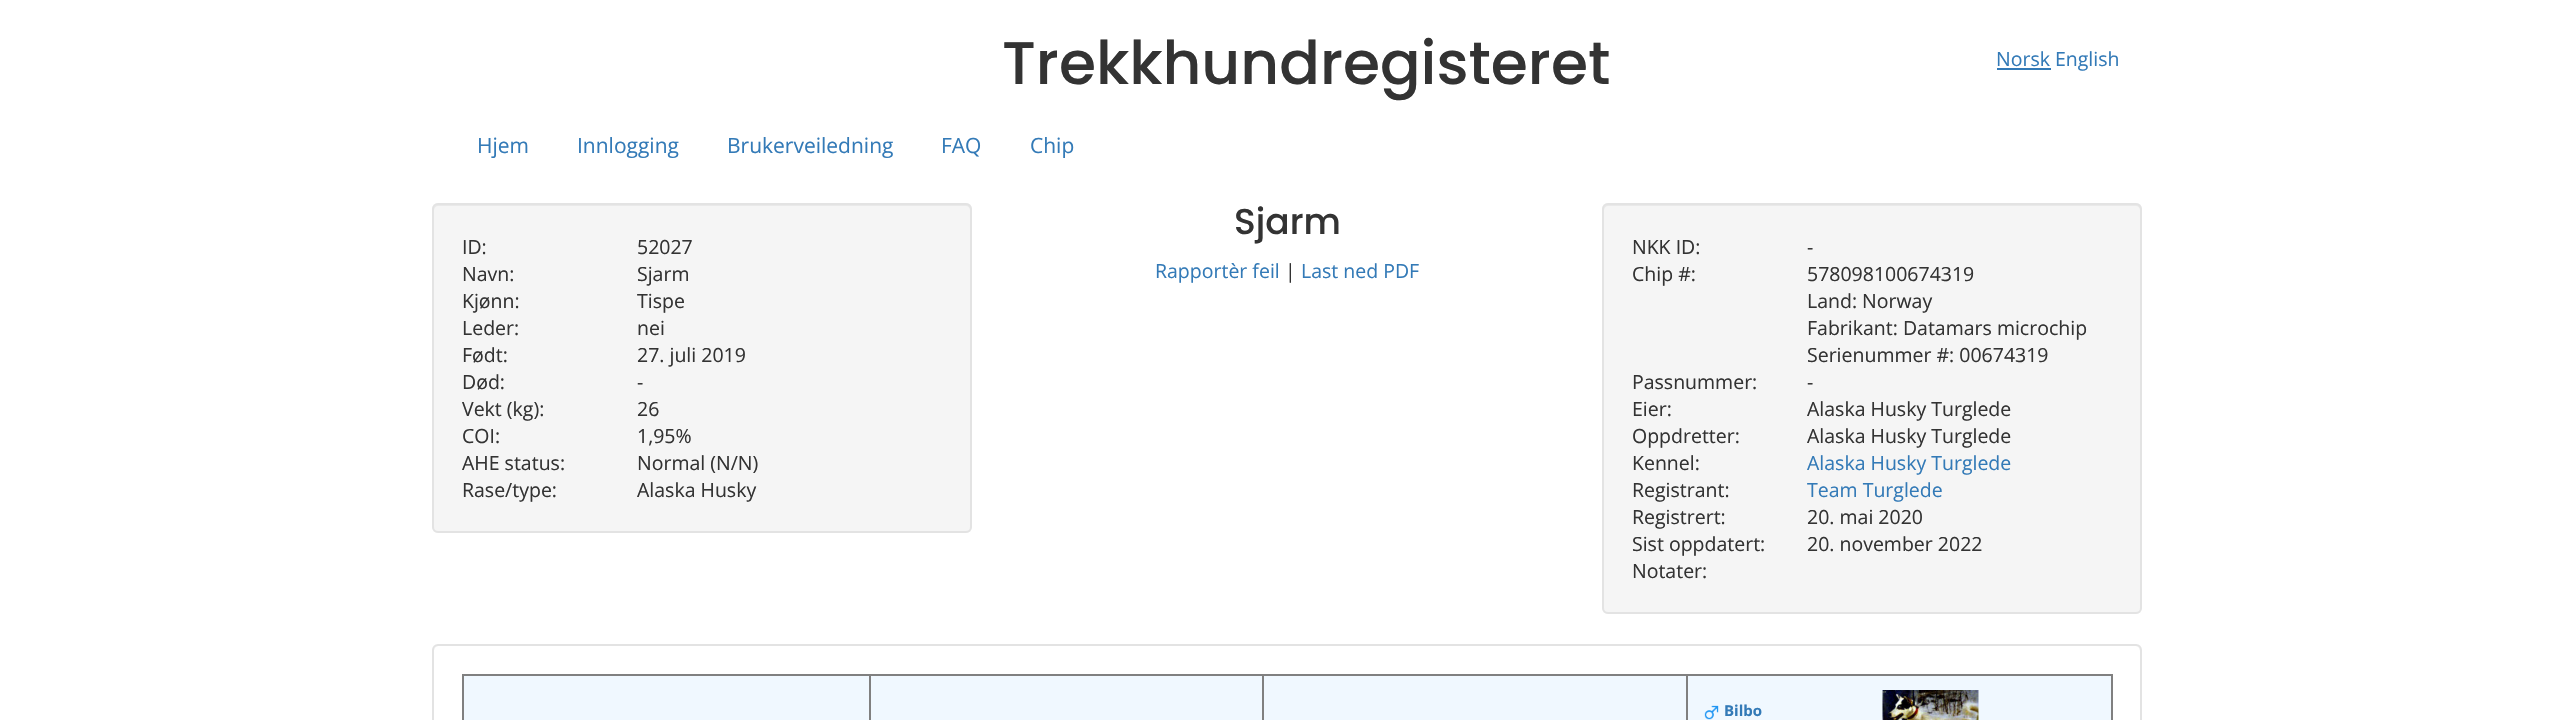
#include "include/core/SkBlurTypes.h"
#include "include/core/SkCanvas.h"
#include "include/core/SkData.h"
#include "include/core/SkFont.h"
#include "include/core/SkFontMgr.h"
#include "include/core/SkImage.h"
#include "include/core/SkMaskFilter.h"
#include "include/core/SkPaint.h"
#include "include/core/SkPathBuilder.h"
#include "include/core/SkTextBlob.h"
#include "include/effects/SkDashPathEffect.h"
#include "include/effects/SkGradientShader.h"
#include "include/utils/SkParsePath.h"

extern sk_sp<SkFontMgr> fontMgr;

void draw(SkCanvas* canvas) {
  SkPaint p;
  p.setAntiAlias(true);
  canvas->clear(SK_ColorWHITE);
  p.setColor(SkColorSetRGB(51, 122, 183));
  canvas->drawRect(SkRect::MakeLTRB(1997, 68, 2051, 70), p);
  p.setColor(SkColorSetRGB(245, 245, 245));
  canvas->drawRoundRect(SkRect::MakeLTRB(432, 203, 972, 533), 6, 6, p);
  p.setColor(SkColorSetRGB(233, 233, 233));
  canvas->drawPath(SkPathBuilder().moveTo(438, 206).lineTo(966, 206).cubicTo(968, 206, 970, 208, 970, 210).lineTo(970, 529).cubicTo(971, 528, 971, 527, 971, 526).lineTo(971, 209).cubicTo(971, 206, 969, 204, 966, 204).lineTo(439, 204).cubicTo(436, 204, 434, 206, 434, 209).lineTo(434, 210).cubicTo(434, 208, 436, 206, 438, 206).close().detach(), p);
  p.setStyle(SkPaint::kStroke_Style);
  p.setStrokeWidth(2);
  p.setColor(SkColorSetRGB(227, 227, 227));
  canvas->drawRoundRect(SkRect::MakeLTRB(433, 204, 971, 532), 5, 5, p);
  p.setStyle(SkPaint::kFill_Style);
  p.setColor(SkColorSetRGB(245, 245, 245));
  canvas->drawRoundRect(SkRect::MakeLTRB(1602, 203, 2142, 614), 6, 6, p);
  p.setColor(SkColorSetRGB(233, 233, 233));
  canvas->drawPath(SkPathBuilder().moveTo(1608, 206).lineTo(2136, 206).cubicTo(2138, 206, 2140, 208, 2140, 210).lineTo(2140, 610).cubicTo(2141, 609, 2141, 608, 2141, 607).lineTo(2141, 209).cubicTo(2141, 206, 2139, 204, 2136, 204).lineTo(1609, 204).cubicTo(1606, 204, 1604, 206, 1604, 209).lineTo(1604, 210).cubicTo(1604, 208, 1606, 206, 1608, 206).close().detach(), p);
  p.setStyle(SkPaint::kStroke_Style);
  p.setColor(SkColorSetRGB(227, 227, 227));
  canvas->drawRoundRect(SkRect::MakeLTRB(1603, 204, 2141, 613), 5, 5, p);
  p.setStyle(SkPaint::kFill_Style);
  p.setColor(SkColorSetRGB(242, 242, 242));
  canvas->drawPath(SkPathBuilder().moveTo(438, 646).lineTo(2136, 646).cubicTo(2138, 646, 2140, 649, 2140, 651).lineTo(2140, 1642).cubicTo(2141, 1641, 2141, 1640, 2141, 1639).lineTo(2141, 650).cubicTo(2141, 647, 2139, 645, 2136, 645).lineTo(439, 645).cubicTo(436, 645, 434, 647, 434, 650).lineTo(434, 651).cubicTo(434, 649, 436, 646, 438, 646).close().detach(), p);
  p.setStyle(SkPaint::kStroke_Style);
  p.setColor(SkColorSetRGB(227, 227, 227));
  canvas->drawRoundRect(SkRect::MakeLTRB(433, 645, 2141, 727), 5, 5, p);
  p.setStyle(SkPaint::kFill_Style);
  p.setColor(SkColorSetRGB(128, 128, 128));
  canvas->drawRect(SkRect::MakeLTRB(462, 674, 2112, 676), p);
  canvas->drawRect(SkRect::MakeLTRB(2111, 674, 2113, 720), p);
  canvas->drawRect(SkRect::MakeLTRB(462, 674, 464, 720), p);
  p.setColor(SkColorSetRGB(240, 248, 255));
  canvas->drawRect(SkRect::MakeLTRB(464, 676, 869, 720), p);
  canvas->drawRect(SkRect::MakeLTRB(871, 676, 1262, 720), p);
  p.setColor(SkColorSetRGB(128, 128, 128));
  canvas->drawRect(SkRect::MakeLTRB(869, 674, 871, 720), p);
  p.setColor(SkColorSetRGB(240, 248, 255));
  canvas->drawRect(SkRect::MakeLTRB(1264, 676, 1686, 720), p);
  p.setColor(SkColorSetRGB(128, 128, 128));
  canvas->drawRect(SkRect::MakeLTRB(1262, 674, 1264, 720), p);
  p.setColor(SkColorSetRGB(240, 248, 255));
  canvas->drawRect(SkRect::MakeLTRB(1688, 676, 2111, 720), p);
  p.setColor(SkColorSetRGB(128, 128, 128));
  canvas->drawRect(SkRect::MakeLTRB(1686, 674, 1688, 720), p);
  canvas->drawImageRect(SkImages::DeferredFromEncodedData(SkData::MakeFromFileName("images/1.png")), SkRect::MakeLTRB(1704, 705, 1719, 720), SkSamplingOptions());
  canvas->drawImageRect(SkImages::DeferredFromEncodedData(SkData::MakeFromFileName("images/2.png")), SkRect::MakeLTRB(1882, 690, 1979, 720), SkSamplingOptions());
  SkFont font1(fontMgr->matchFamilyStyle("Poppins", SkFontStyle(500, SkFontStyle::kNormal_Width, SkFontStyle::kUpright_Slant)), 60);
  font1.setSubpixel(true);
  p.setColor(SkColorSetRGB(51, 51, 51));
  canvas->drawString("Trekkhundregisteret", 1002, 84, font1, p);
  SkFont font2(fontMgr->matchFamilyStyle("Open Sans", SkFontStyle::Normal()), 19.5f);
  font2.setSubpixel(true);
  p.setColor(SkColorSetRGB(51, 122, 183));
  canvas->drawString("Norsk English", 1996, 66, font2, p);
  SkFont font3(fontMgr->matchFamilyStyle("Open Sans", SkFontStyle::Normal()), 21);
  font3.setSubpixel(true);
  canvas->drawString("Hjem", 477, 153, font3, p);
  canvas->drawString("Innlogging", 577, 153, font3, p);
  canvas->drawString("Brukerveiledning", 727, 153, font3, p);
  canvas->drawString("FAQ", 941, 153, font3, p);
  canvas->drawString("Chip", 1030, 153, font3, p);
  p.setColor(SkColorSetRGB(51, 51, 51));
  canvas->drawString("ID:", 462, 254, font2, p);
  canvas->drawString("52027", 637, 254, font2, p);
  canvas->drawString("Navn:", 462, 281, font2, p);
  canvas->drawString("Sjarm", 637, 281, font2, p);
  canvas->drawString("Kjønn:", 462, 308, font2, p);
  canvas->drawString("Tispe", 637, 308, font2, p);
  canvas->drawString("Leder:", 462, 335, font2, p);
  canvas->drawString("nei", 637, 335, font2, p);
  canvas->drawString("Født:", 462, 362, font2, p);
  canvas->drawString("27. juli 2019", 637, 362, font2, p);
  canvas->drawString("Død:", 462, 389, font2, p);
  canvas->drawString("-", 637, 389, font2, p);
  canvas->drawString("Vekt (kg):", 462, 416, font2, p);
  canvas->drawString("26", 637, 416, font2, p);
  canvas->drawString("COI:", 462, 443, font2, p);
  canvas->drawString("1,95%", 637, 443, font2, p);
  canvas->drawString("AHE status:", 462, 470, font2, p);
  canvas->drawString("Normal (N/N)", 637, 470, font2, p);
  canvas->drawString("Rase/type:", 462, 497, font2, p);
  canvas->drawString("Alaska Husky", 637, 497, font2, p);
  SkFont font4(fontMgr->matchFamilyStyle("Poppins", SkFontStyle(500, SkFontStyle::kNormal_Width, SkFontStyle::kUpright_Slant)), 36);
  font4.setSubpixel(true);
  canvas->drawString("Sjarm", 1234, 234, font4, p);
  p.setColor(SkColorSetRGB(51, 122, 183));
  canvas->drawString("Rapportèr feil", 1155, 278, font2, p);
  p.setColor(SkColorSetRGB(51, 51, 51));
  canvas->drawString("|", 1285, 278, font2, p);
  p.setColor(SkColorSetRGB(51, 122, 183));
  canvas->drawString("Last ned PDF", 1301, 278, font2, p);
  p.setColor(SkColorSetRGB(51, 51, 51));
  canvas->drawString("NKK ID:", 1632, 254, font2, p);
  canvas->drawString("-", 1807, 254, font2, p);
  canvas->drawString("Chip #:", 1632, 281, font2, p);
  canvas->drawString("578098100674319", 1807, 281, font2, p);
  canvas->drawString("Land: Norway", 1807, 308, font2, p);
  canvas->drawString("Fabrikant: Datamars microchip", 1807, 335, font2, p);
  canvas->drawString("Serienummer #: 00674319", 1807, 362, font2, p);
  canvas->drawString("Passnummer:", 1632, 389, font2, p);
  canvas->drawString("-", 1807, 389, font2, p);
  canvas->drawString("Eier:", 1632, 416, font2, p);
  canvas->drawString("Alaska Husky Turglede", 1807, 416, font2, p);
  canvas->drawString("Oppdretter:", 1632, 443, font2, p);
  canvas->drawString("Alaska Husky Turglede", 1807, 443, font2, p);
  canvas->drawString("Kennel:", 1632, 470, font2, p);
  p.setColor(SkColorSetRGB(51, 122, 183));
  canvas->drawString("Alaska Husky Turglede", 1807, 470, font2, p);
  p.setColor(SkColorSetRGB(51, 51, 51));
  canvas->drawString("Registrant:", 1632, 497, font2, p);
  p.setColor(SkColorSetRGB(51, 122, 183));
  canvas->drawString("Team Turglede", 1807, 497, font2, p);
  p.setColor(SkColorSetRGB(51, 51, 51));
  canvas->drawString("Registrert:", 1632, 524, font2, p);
  canvas->drawString("20. mai 2020", 1807, 524, font2, p);
  canvas->drawString("Sist oppdatert:", 1632, 551, font2, p);
  canvas->drawString("20. november 2022", 1807, 551, font2, p);
  canvas->drawString("Notater:", 1632, 578, font2, p);
  SkFont font5(fontMgr->matchFamilyStyle("Open Sans", SkFontStyle::Bold()), 15);
  font5.setSubpixel(true);
  p.setColor(SkColorSetRGB(51, 122, 183));
  canvas->drawString("Bilbo", 1724, 716, font5, p);
}
